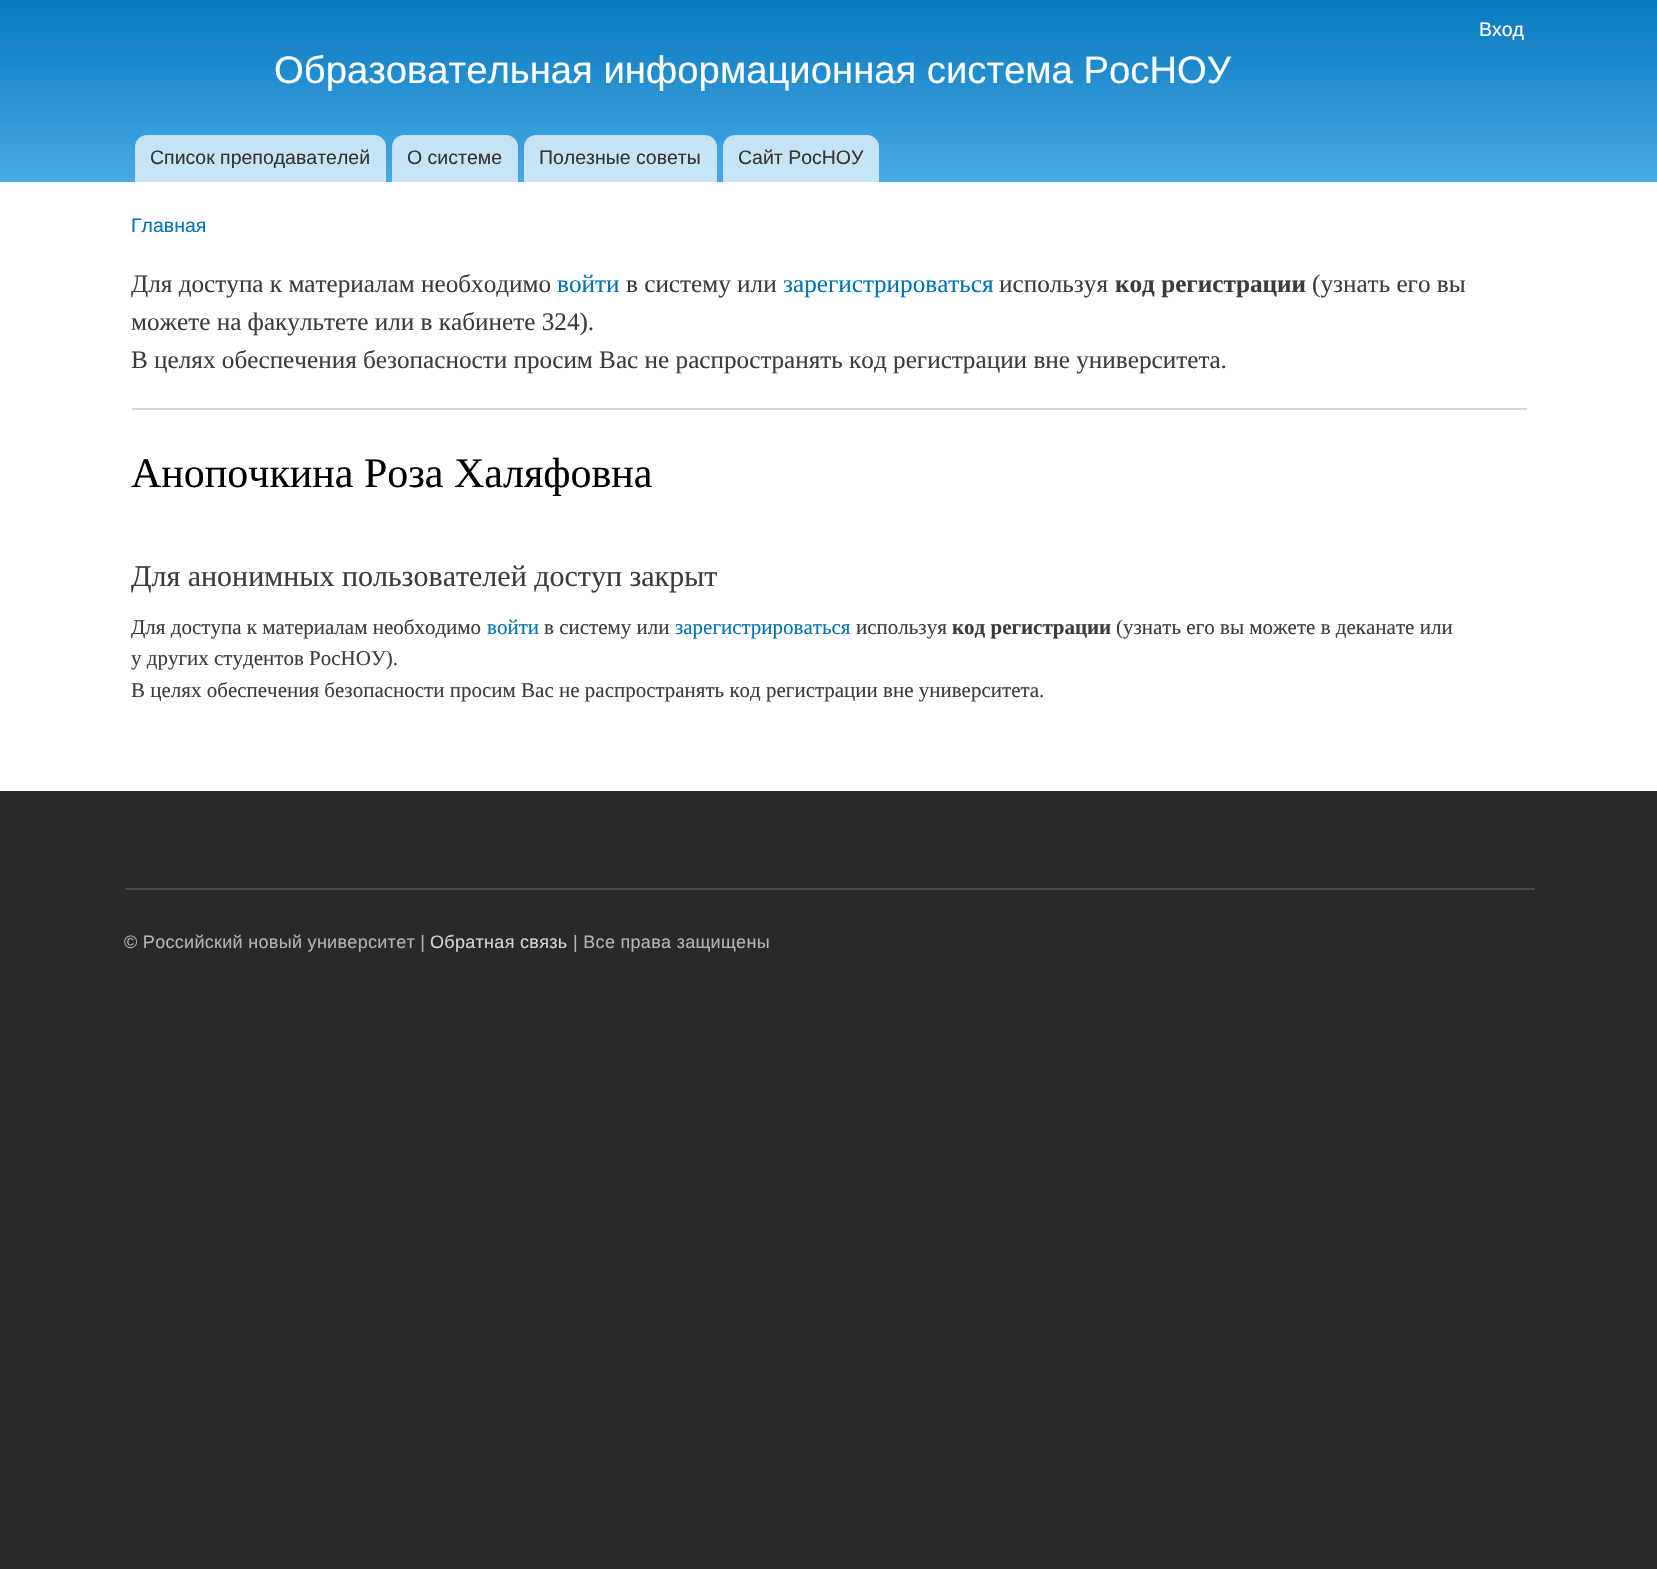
#include "include/core/SkBlurTypes.h"
#include "include/core/SkCanvas.h"
#include "include/core/SkData.h"
#include "include/core/SkFont.h"
#include "include/core/SkFontMgr.h"
#include "include/core/SkImage.h"
#include "include/core/SkMaskFilter.h"
#include "include/core/SkPaint.h"
#include "include/core/SkPathBuilder.h"
#include "include/core/SkTextBlob.h"
#include "include/effects/SkDashPathEffect.h"
#include "include/effects/SkGradientShader.h"
#include "include/utils/SkParsePath.h"

extern sk_sp<SkFontMgr> fontMgr;

void draw(SkCanvas* canvas) {
  SkPaint p;
  p.setAntiAlias(true);
  auto spacedText = [&](const char* s, float x, float y, const SkFont& font, const SkPaint& ink, float letter, float word) {
    std::vector<SkGlyphID> glyphs(font.countText(s, strlen(s), SkTextEncoding::kUTF8));
    std::vector<float> xs(glyphs.size());
    font.textToGlyphs(s, strlen(s), SkTextEncoding::kUTF8, glyphs);
    font.getXPos(glyphs, xs, x);
    float extra = 0;
    for (size_t i = 0; i < glyphs.size(); i++) {
      xs[i] += extra;
      extra += letter + word * (glyphs[i] == font.unicharToGlyph(' '));
    }
    canvas->drawTextBlob(SkTextBlob::MakeFromPosHGlyphs(glyphs, xs, y, font), 0, 0, ink);
  };
  canvas->clear(SkColorSetRGB(41, 41, 41));
  p.setColor(SK_ColorWHITE);
  canvas->drawRect(SkRect::MakeLTRB(0, 182, 1657, 791), p);
  {
    const SkColor colors[] = {SkColorSetRGB(7, 121, 191), SkColorSetRGB(72, 169, 228)};
    const float stops[] = {0, 1};
    const SkPoint ends[] = {{829, 0}, {829, 182}};
    p.setShader(SkGradientShader::MakeLinear(ends, colors, stops, 2, SkTileMode::kClamp));
    p.setAlpha(255);
  }
  canvas->drawRect(SkRect::MakeLTRB(0, 0, 1657, 182), p);
  p.setShader(nullptr);
  p.setColor(SkColorSetARGB(179, 255, 255, 255));
  canvas->drawPath(SkPathBuilder().moveTo(147, 135).lineTo(374, 135).cubicTo(380.5f, 135, 386, 140.5f, 386, 147).lineTo(386, 182).lineTo(135, 182).lineTo(135, 147).cubicTo(135, 140.5f, 140.5f, 135, 147, 135).close().detach(), p);
  canvas->drawPath(SkPathBuilder().moveTo(404, 135).lineTo(506, 135).cubicTo(512.5f, 135, 518, 140.5f, 518, 147).lineTo(518, 182).lineTo(392, 182).lineTo(392, 147).cubicTo(392, 140.5f, 397.5f, 135, 404, 135).close().detach(), p);
  canvas->drawPath(SkPathBuilder().moveTo(536, 135).lineTo(705, 135).cubicTo(711.5f, 135, 717, 140.5f, 717, 147).lineTo(717, 182).lineTo(524, 182).lineTo(524, 147).cubicTo(524, 140.5f, 529.5f, 135, 536, 135).close().detach(), p);
  canvas->drawPath(SkPathBuilder().moveTo(735, 135).lineTo(867, 135).cubicTo(873.5f, 135, 879, 140.5f, 879, 147).lineTo(879, 182).lineTo(723, 182).lineTo(723, 147).cubicTo(723, 140.5f, 728.5f, 135, 735, 135).close().detach(), p);
  p.setColor(SkColorSetRGB(211, 215, 217));
  canvas->drawRect(SkRect::MakeLTRB(132, 408, 1527, 410), p);
  p.setColor(SkColorSetRGB(73, 73, 73));
  canvas->drawRect(SkRect::MakeLTRB(125, 888, 1535, 890), p);
  SkFont font1(fontMgr->matchFamilyStyle("Liberation Sans", SkFontStyle::Normal()), 19.5f);
  font1.setSubpixel(true);
  p.setColor(SkColorSetRGB(255, 254, 255));
  canvas->drawString("Вход", 1479, 36, font1, p);
  SkFont font2(fontMgr->matchFamilyStyle("Liberation Sans", SkFontStyle::Normal()), 38.25f);
  font2.setSubpixel(true);
  canvas->drawString("Образовательная информационная система РосНОУ", 274, 83, font2, p);
  p.setColor(SkColorSetRGB(51, 51, 51));
  canvas->drawString("Список преподавателей", 150, 164, font1, p);
  canvas->drawString("О системе", 407, 164, font1, p);
  canvas->drawString("Полезные советы", 539, 164, font1, p);
  canvas->drawString("Cайт РосНОУ", 738, 164, font1, p);
  p.setColor(SkColorSetRGB(0, 113, 179));
  canvas->drawString("Главная", 131, 232, font1, p);
  SkFont font3(fontMgr->matchFamilyStyle("Liberation Serif", SkFontStyle::Normal()), 25.2f);
  font3.setSubpixel(true);
  p.setColor(SkColorSetRGB(59, 59, 59));
  canvas->drawString("Для доступа к материалам необходимо", 131, 292, font3, p);
  p.setColor(SkColorSetRGB(0, 113, 179));
  canvas->drawString("войти", 557, 292, font3, p);
  p.setColor(SkColorSetRGB(59, 59, 59));
  canvas->drawString("в систему или", 626, 292, font3, p);
  p.setColor(SkColorSetRGB(0, 113, 179));
  canvas->drawString("зарегистрироваться", 783, 292, font3, p);
  p.setColor(SkColorSetRGB(59, 59, 59));
  canvas->drawString("используя", 999, 292, font3, p);
  SkFont font4(fontMgr->matchFamilyStyle("Liberation Serif", SkFontStyle::Bold()), 25.2f);
  font4.setSubpixel(true);
  canvas->drawString("код регистрации", 1115, 292, font4, p);
  canvas->drawString("(узнать его вы", 1312, 292, font3, p);
  canvas->drawString("можете на факультете или в кабинете 324).", 131, 330, font3, p);
  canvas->drawString("В целях обеспечения безопасности просим Вас не распространять код регистрации вне университета.", 131, 368, font3, p);
  SkFont font5(fontMgr->matchFamilyStyle("Liberation Serif", SkFontStyle::Normal()), 42);
  font5.setSubpixel(true);
  p.setColor(SK_ColorBLACK);
  canvas->drawString("Анопочкина Роза Халяфовна", 131, 487, font5, p);
  SkFont font6(fontMgr->matchFamilyStyle("Liberation Serif", SkFontStyle::Normal()), 30);
  font6.setSubpixel(true);
  p.setColor(SkColorSetRGB(59, 59, 59));
  canvas->drawString("Для анонимных пользователей доступ закрыт", 131, 586, font6, p);
  SkFont font7(fontMgr->matchFamilyStyle("Liberation Serif", SkFontStyle::Normal()), 21);
  font7.setSubpixel(true);
  canvas->drawString("Для доступа к материалам необходимо", 131, 634, font7, p);
  p.setColor(SkColorSetRGB(0, 113, 179));
  canvas->drawString("войти", 487, 634, font7, p);
  p.setColor(SkColorSetRGB(59, 59, 59));
  canvas->drawString("в систему или", 544, 634, font7, p);
  p.setColor(SkColorSetRGB(0, 113, 179));
  canvas->drawString("зарегистрироваться", 675, 634, font7, p);
  p.setColor(SkColorSetRGB(59, 59, 59));
  canvas->drawString("используя", 856, 634, font7, p);
  SkFont font8(fontMgr->matchFamilyStyle("Liberation Serif", SkFontStyle::Bold()), 21);
  font8.setSubpixel(true);
  canvas->drawString("код регистрации", 952, 634, font8, p);
  canvas->drawString("(узнать его вы можете в деканате или", 1116, 634, font7, p);
  canvas->drawString("у других студентов РосНОУ).", 131, 665, font7, p);
  canvas->drawString("В целях обеспечения безопасности просим Вас не распространять код регистрации вне университета.", 131, 697, font7, p);
  SkFont font9(fontMgr->matchFamilyStyle("Liberation Sans", SkFontStyle::Normal()), 18);
  font9.setSubpixel(true);
  p.setColor(SkColorSetRGB(180, 180, 180));
  spacedText("© Российский новый университет |", 124, 948, font9, p, 0.3f, 0);
  p.setColor(SkColorSetRGB(212, 212, 212));
  spacedText("Обратная связь", 430, 948, font9, p, 0.3f, 0);
  p.setColor(SkColorSetRGB(180, 180, 180));
  spacedText("| Все права защищены", 573, 948, font9, p, 0.3f, 0);
}
